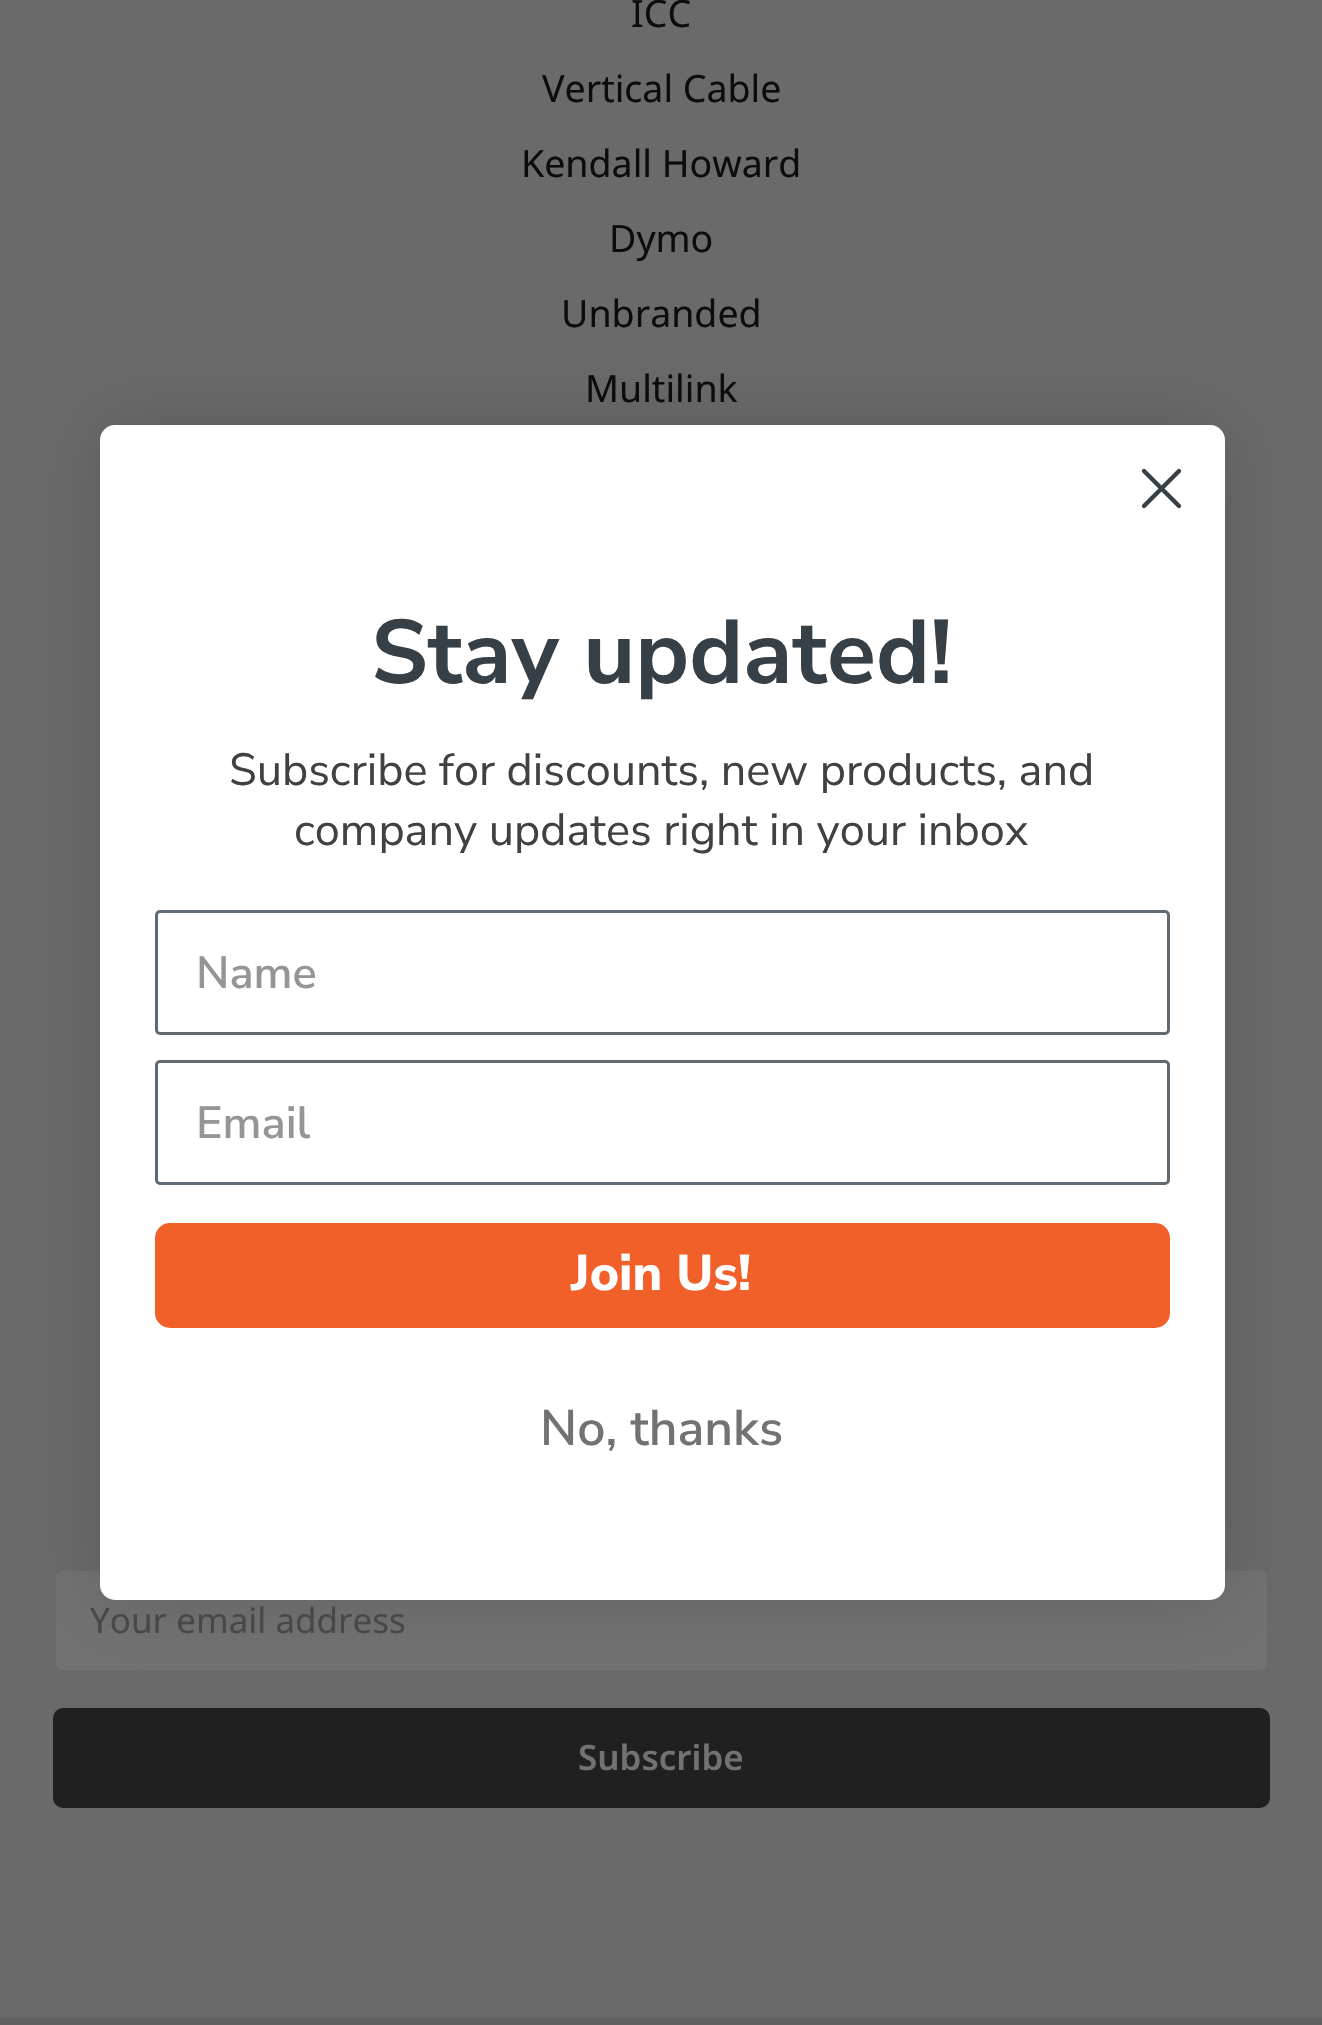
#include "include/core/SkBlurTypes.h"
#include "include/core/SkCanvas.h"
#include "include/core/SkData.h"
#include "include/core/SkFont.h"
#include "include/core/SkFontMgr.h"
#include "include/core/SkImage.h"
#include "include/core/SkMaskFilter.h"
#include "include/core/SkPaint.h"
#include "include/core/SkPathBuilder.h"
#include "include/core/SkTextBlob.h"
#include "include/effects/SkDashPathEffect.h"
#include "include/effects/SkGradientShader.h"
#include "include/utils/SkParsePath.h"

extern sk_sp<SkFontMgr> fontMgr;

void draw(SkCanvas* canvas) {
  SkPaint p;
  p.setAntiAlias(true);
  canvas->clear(SkColorSetRGB(106, 106, 106));
  p.setColor(SkColorSetRGB(114, 114, 114));
  canvas->drawRoundRect(SkRect::MakeLTRB(54.5f, 1569.5f, 1268.5f, 1671.5f), 8.5f, 8.5f, p);
  p.setStyle(SkPaint::kStroke_Style);
  p.setStrokeWidth(3);
  p.setColor(SkColorSetRGB(106, 106, 106));
  canvas->drawRoundRect(SkRect::MakeLTRB(54.5f, 1569.5f, 1268.5f, 1671.5f), 8.5f, 8.5f, p);
  p.setStyle(SkPaint::kFill_Style);
  p.setColor(SkColorSetRGB(32, 32, 32));
  canvas->drawRoundRect(SkRect::MakeLTRB(54.5f, 1709.5f, 1268.5f, 1806.5f), 8.5f, 8.5f, p);
  p.setStyle(SkPaint::kStroke_Style);
  canvas->drawRoundRect(SkRect::MakeLTRB(54.5f, 1709.5f, 1268.5f, 1806.5f), 8.5f, 8.5f, p);
  p.setStyle(SkPaint::kFill_Style);
  p.setColor(SkColorSetRGB(96, 96, 96));
  canvas->drawRect(SkRect::MakeLTRB(0, 2018, 1322, 2025), p);
  p.setColor(SkColorSetARGB(38, 0, 0, 0));
  p.setMaskFilter(SkMaskFilter::MakeBlur(kNormal_SkBlurStyle, 37.5f));
  canvas->drawRoundRect(SkRect::MakeLTRB(100, 425, 1225, 1600), 15, 15, p);
  p.setMaskFilter(nullptr);
  p.setColor(SK_ColorWHITE);
  canvas->drawRoundRect(SkRect::MakeLTRB(100, 425, 1225, 1600), 15, 15, p);
  p.setStyle(SkPaint::kStroke_Style);
  p.setStrokeWidth(4.4f);
  p.setStrokeCap(SkPaint::kRound_Cap);
  p.setStrokeJoin(SkPaint::kRound_Join);
  p.setColor(SkColorSetRGB(55, 63, 71));
  canvas->drawPath(SkPathBuilder().moveTo(1144, 471).lineTo(1179, 506).moveTo(1144, 506).lineTo(1179, 471).close().detach(), p);
  p.setStrokeWidth(3);
  p.setStrokeCap(SkPaint::kButt_Cap);
  p.setStrokeJoin(SkPaint::kMiter_Join);
  p.setColor(SkColorSetRGB(96, 106, 114));
  canvas->drawRoundRect(SkRect::MakeLTRB(156.5f, 911.5f, 1168.5f, 1033.5f), 3.5f, 3.5f, p);
  canvas->drawRoundRect(SkRect::MakeLTRB(156.5f, 1061.5f, 1168.5f, 1183.5f), 3.5f, 3.5f, p);
  p.setStyle(SkPaint::kFill_Style);
  p.setColor(SkColorSetRGB(241, 96, 41));
  canvas->drawRoundRect(SkRect::MakeLTRB(155, 1223, 1170, 1328), 15, 15, p);
  SkFont font1(fontMgr->matchFamilyStyle("Noto Sans", SkFontStyle::Normal()), 37.5f);
  font1.setSubpixel(true);
  p.setColor(SkColorSetRGB(12, 12, 12));
  canvas->drawString("ICC", 631, 27, font1, p);
  canvas->drawString("Vertical Cable", 542, 102, font1, p);
  canvas->drawString("Kendall Howard", 521, 177, font1, p);
  canvas->drawString("Dymo", 609, 252, font1, p);
  canvas->drawString("Unbranded", 561, 327, font1, p);
  canvas->drawString("Multilink", 585, 402, font1, p);
  SkFont font2(fontMgr->matchFamilyStyle("Noto Sans", SkFontStyle::Normal()), 35);
  font2.setSubpixel(true);
  p.setColor(SkColorSetRGB(72, 72, 72));
  canvas->drawString("Your email address", 90, 1633, font2, p);
  SkFont font3(fontMgr->matchFamilyStyle("Noto Sans", SkFontStyle(600, SkFontStyle::kNormal_Width, SkFontStyle::kUpright_Slant)), 35);
  font3.setSubpixel(true);
  p.setColor(SkColorSetRGB(114, 114, 114));
  canvas->drawString("Subscribe", 578, 1770, font3, p);
  SkFont font4(fontMgr->matchFamilyStyle("Nunito Sans", SkFontStyle::Bold()), 90);
  font4.setSubpixel(true);
  p.setColor(SkColorSetRGB(55, 63, 71));
  canvas->drawString("Stay updated!", 371, 683, font4, p);
  SkFont font5(fontMgr->matchFamilyStyle("Nunito Sans", SkFontStyle::Normal()), 45);
  font5.setSubpixel(true);
  p.setColor(SkColorSetRGB(65, 65, 65));
  canvas->drawString("Subscribe for discounts, new products, and", 229, 785, font5, p);
  canvas->drawString("company updates right in your inbox", 294, 845, font5, p);
  SkFont font6(fontMgr->matchFamilyStyle("Nunito Sans", SkFontStyle(600, SkFontStyle::kNormal_Width, SkFontStyle::kUpright_Slant)), 45);
  font6.setSubpixel(true);
  p.setColor(SkColorSetRGB(148, 149, 150));
  canvas->drawString("Name", 196, 988, font6, p);
  canvas->drawString("Email", 196, 1138, font6, p);
  SkFont font7(fontMgr->matchFamilyStyle("Nunito Sans", SkFontStyle(800, SkFontStyle::kNormal_Width, SkFontStyle::kUpright_Slant)), 50);
  font7.setSubpixel(true);
  p.setColor(SK_ColorWHITE);
  canvas->drawString("Join Us!", 571, 1290, font7, p);
  SkFont font8(fontMgr->matchFamilyStyle("Nunito Sans", SkFontStyle(600, SkFontStyle::kNormal_Width, SkFontStyle::kUpright_Slant)), 50);
  font8.setSubpixel(true);
  p.setColor(SkColorSetRGB(114, 114, 114));
  canvas->drawString("No, thanks", 540, 1445, font8, p);
}
